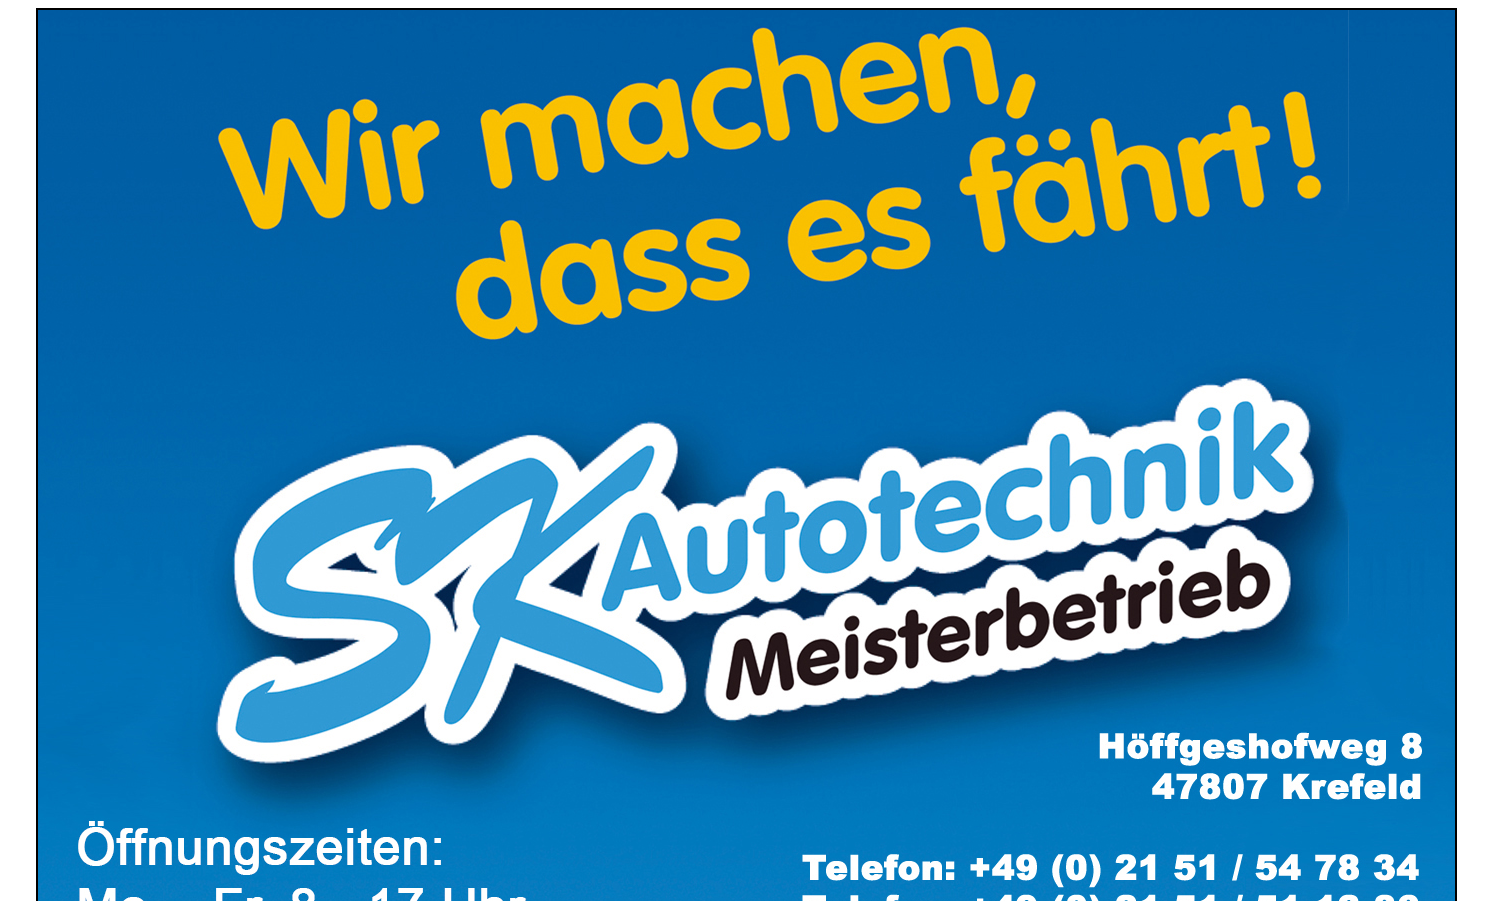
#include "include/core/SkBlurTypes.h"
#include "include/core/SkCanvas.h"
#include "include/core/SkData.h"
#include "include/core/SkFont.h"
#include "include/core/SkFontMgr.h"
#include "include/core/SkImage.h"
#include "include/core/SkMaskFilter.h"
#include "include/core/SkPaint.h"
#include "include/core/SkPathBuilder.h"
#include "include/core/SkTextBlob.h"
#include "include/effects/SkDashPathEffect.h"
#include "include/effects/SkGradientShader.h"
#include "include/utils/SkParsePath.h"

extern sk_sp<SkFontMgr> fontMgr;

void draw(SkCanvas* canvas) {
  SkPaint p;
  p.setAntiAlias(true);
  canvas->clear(SK_ColorWHITE);
  p.setStyle(SkPaint::kStroke_Style);
  p.setStrokeWidth(2);
  p.setColor(SK_ColorBLACK);
  canvas->drawRect(SkRect::MakeLTRB(37, 9, 1456, 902), p);
  canvas->drawImageRect(SkImages::DeferredFromEncodedData(SkData::MakeFromFileName("images/1.png")), SkRect::MakeLTRB(38, 10, 1455, 901), SkSamplingOptions());
}
